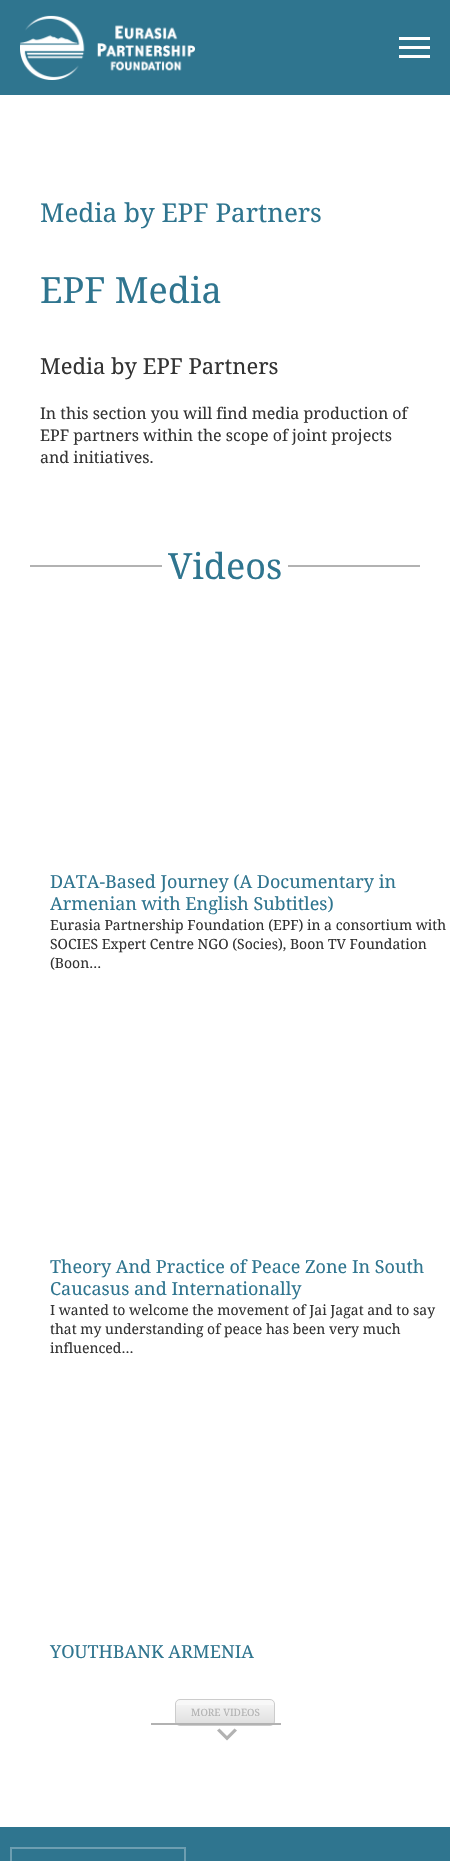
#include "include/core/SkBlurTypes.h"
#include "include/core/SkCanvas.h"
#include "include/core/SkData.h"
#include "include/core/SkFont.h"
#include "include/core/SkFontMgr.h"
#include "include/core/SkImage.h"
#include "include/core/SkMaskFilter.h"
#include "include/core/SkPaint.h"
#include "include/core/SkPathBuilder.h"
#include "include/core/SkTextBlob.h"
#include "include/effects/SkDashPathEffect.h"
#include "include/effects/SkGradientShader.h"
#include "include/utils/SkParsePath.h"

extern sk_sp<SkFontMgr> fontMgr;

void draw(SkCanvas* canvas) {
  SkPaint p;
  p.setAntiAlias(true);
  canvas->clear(SK_ColorWHITE);
  p.setColor(SkColorSetRGB(47, 117, 143));
  canvas->drawRect(SkRect::MakeLTRB(0, 0, 450, 95), p);
  canvas->drawImageRect(SkImages::DeferredFromEncodedData(SkData::MakeFromFileName("images/1.png")), SkRect::MakeLTRB(20, 15, 195, 80), SkSamplingOptions());
  p.setColor(SK_ColorWHITE);
  canvas->drawRect(SkRect::MakeLTRB(399, 37, 430, 40), p);
  canvas->drawRect(SkRect::MakeLTRB(399, 46, 430, 49), p);
  canvas->drawRect(SkRect::MakeLTRB(399, 55, 430, 58), p);
  p.setColor(SkColorSetRGB(178, 178, 178));
  canvas->drawRect(SkRect::MakeLTRB(30, 565, 162, 567), p);
  canvas->drawRect(SkRect::MakeLTRB(288, 565, 420, 567), p);
  p.setColor(SkColorSetRGB(248, 248, 248));
  canvas->drawRoundRect(SkRect::MakeLTRB(175, 1699, 275, 1726), 5, 5, p);
  {
    const SkColor colors[] = {SkColorSetARGB(0, 0, 0, 0), SkColorSetARGB(26, 0, 0, 0)};
    const float stops[] = {0, 1};
    const SkPoint ends[] = {{225, 1700}, {225, 1725}};
    p.setShader(SkGradientShader::MakeLinear(ends, colors, stops, 2, SkTileMode::kClamp));
    p.setAlpha(255);
  }
  canvas->drawRect(SkRect::MakeLTRB(175, 1705, 275, 1723), p);
  p.setStyle(SkPaint::kStroke_Style);
  p.setStrokeWidth(1);
  p.setShader(nullptr);
  p.setColor(SkColorSetRGB(204, 204, 204));
  canvas->drawRoundRect(SkRect::MakeLTRB(175.5f, 1699.5f, 274.5f, 1725.5f), 4.5f, 4.5f, p);
  p.setStyle(SkPaint::kFill_Style);
  p.setColor(SkColorSetRGB(178, 178, 178));
  canvas->drawRect(SkRect::MakeLTRB(151, 1723, 281, 1725), p);
  canvas->drawPath(SkPathBuilder().moveTo(234.5f, 1728.5f).lineTo(237, 1730.5f).lineTo(227, 1740.5f).lineTo(217, 1730.5f).lineTo(219.5f, 1728.5f).lineTo(227, 1736).close().detach(), p);
  p.setColor(SkColorSetRGB(47, 117, 143));
  canvas->drawRect(SkRect::MakeLTRB(0, 1827, 450, 1861), p);
  p.setStyle(SkPaint::kStroke_Style);
  p.setStrokeWidth(2);
  p.setColor(SkColorSetRGB(109, 158, 177));
  canvas->drawRect(SkRect::MakeLTRB(11, 1848, 185, 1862), p);
  SkFont font1(fontMgr->matchFamilyStyle("Noto Serif Armenian", SkFontStyle::Normal()), 26);
  font1.setSubpixel(true);
  p.setStyle(SkPaint::kFill_Style);
  p.setColor(SkColorSetRGB(47, 117, 143));
  canvas->drawString("Media by EPF Partners", 40, 222, font1, p);
  SkFont font2(fontMgr->matchFamilyStyle("Noto Serif Armenian", SkFontStyle::Normal()), 36);
  font2.setSubpixel(true);
  canvas->drawString("EPF Media", 40, 303, font2, p);
  SkFont font3(fontMgr->matchFamilyStyle("Noto Serif Armenian", SkFontStyle::Normal()), 22);
  font3.setSubpixel(true);
  p.setColor(SkColorSetRGB(51, 51, 51));
  canvas->drawString("Media by EPF Partners", 40, 374, font3, p);
  SkFont font4(fontMgr->matchFamilyStyle("Noto Serif Armenian", SkFontStyle::Normal()), 16);
  font4.setSubpixel(true);
  canvas->drawString("In this section you will find media production of", 40, 419, font4, p);
  canvas->drawString("EPF partners within the scope of joint projects", 40, 441, font4, p);
  canvas->drawString("and initiatives.", 40, 463, font4, p);
  p.setColor(SkColorSetRGB(47, 117, 143));
  canvas->drawString("Videos", 168, 579, font2, p);
  SkFont font5(fontMgr->matchFamilyStyle("Noto Serif Armenian", SkFontStyle::Normal()), 18);
  font5.setSubpixel(true);
  canvas->drawString("DATA-Based Journey (A Documentary in", 50, 888, font5, p);
  canvas->drawString("Armenian with English Subtitles)", 50, 910, font5, p);
  SkFont font6(fontMgr->matchFamilyStyle("Noto Serif Armenian", SkFontStyle::Normal()), 14);
  font6.setSubpixel(true);
  p.setColor(SkColorSetRGB(51, 51, 51));
  canvas->drawString("Eurasia Partnership Foundation (EPF) in a consortium with", 50, 930, font6, p);
  canvas->drawString("SOCIES Expert Centre NGO (Socies), Boon TV Foundation", 50, 949, font6, p);
  canvas->drawString("(Boon…", 50, 968, font6, p);
  p.setColor(SkColorSetRGB(47, 117, 143));
  canvas->drawString("Theory And Practice of Peace Zone In South", 50, 1273, font5, p);
  canvas->drawString("Caucasus and Internationally", 50, 1295, font5, p);
  p.setColor(SkColorSetRGB(51, 51, 51));
  canvas->drawString("I wanted to welcome the movement of Jai Jagat and to say", 50, 1315, font6, p);
  canvas->drawString("that my understanding of peace has been very much", 50, 1334, font6, p);
  canvas->drawString("influenced…", 50, 1353, font6, p);
  p.setColor(SkColorSetRGB(47, 117, 143));
  canvas->drawString("YOUTHBANK ARMENIA", 50, 1658, font5, p);
  SkFont font7(fontMgr->matchFamilyStyle("Noto Serif Armenian", SkFontStyle::Normal()), 10);
  font7.setSubpixel(true);
  p.setColor(SkColorSetRGB(178, 178, 178));
  canvas->drawString("MORE VIDEOS", 191, 1716, font7, p);
}
